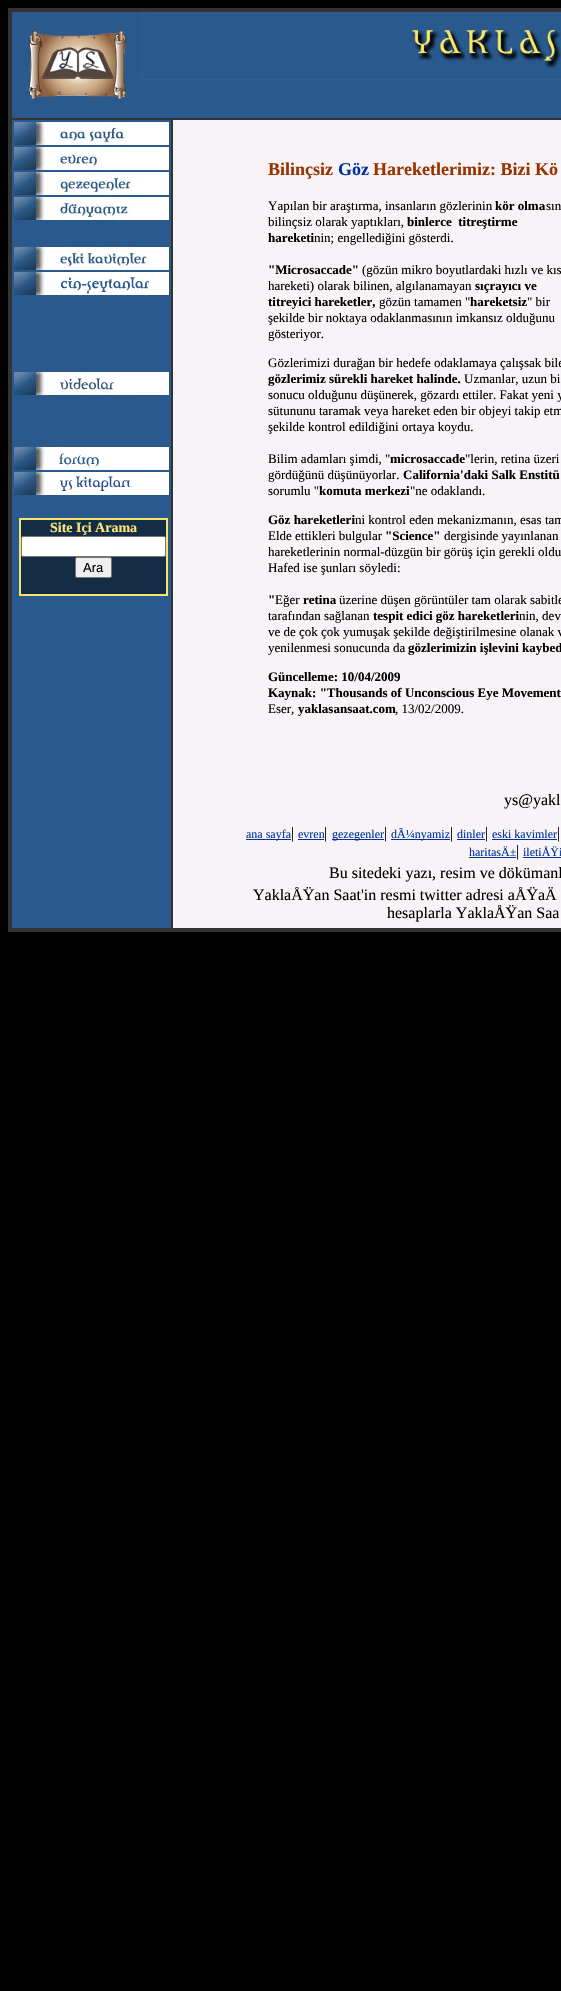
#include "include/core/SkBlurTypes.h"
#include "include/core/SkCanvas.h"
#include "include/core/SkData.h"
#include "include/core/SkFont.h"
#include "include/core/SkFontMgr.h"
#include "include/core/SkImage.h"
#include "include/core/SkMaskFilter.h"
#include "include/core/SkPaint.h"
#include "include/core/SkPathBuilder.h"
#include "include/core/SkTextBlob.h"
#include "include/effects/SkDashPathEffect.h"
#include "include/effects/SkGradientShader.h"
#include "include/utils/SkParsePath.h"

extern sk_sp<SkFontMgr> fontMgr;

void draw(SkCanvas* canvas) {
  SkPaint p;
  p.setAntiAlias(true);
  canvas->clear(SK_ColorBLACK);
  p.setStyle(SkPaint::kStroke_Style);
  p.setStrokeWidth(3);
  p.setColor(SkColorSetRGB(51, 51, 51));
  canvas->drawRect(SkRect::MakeLTRB(9.5f, 9.5f, 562.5f, 930.5f), p);
  p.setStyle(SkPaint::kFill_Style);
  p.setColor(SkColorSetRGB(41, 89, 141));
  canvas->drawRect(SkRect::MakeLTRB(11.5f, 11.5f, 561.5f, 118.5f), p);
  p.setStyle(SkPaint::kStroke_Style);
  p.setStrokeWidth(1);
  p.setColor(SkColorSetRGB(51, 51, 51));
  canvas->drawRect(SkRect::MakeLTRB(11.5f, 11.5f, 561.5f, 118.5f), p);
  canvas->drawImageRect(SkImages::DeferredFromEncodedData(SkData::MakeFromFileName("images/1.png")), SkRect::MakeLTRB(29, 31, 126, 99), SkSamplingOptions());
  canvas->drawImageRect(SkImages::DeferredFromEncodedData(SkData::MakeFromFileName("images/2.png")), SkRect::MakeLTRB(142, 12, 561, 80), SkSamplingOptions());
  p.setStyle(SkPaint::kFill_Style);
  p.setColor(SkColorSetRGB(41, 89, 141));
  canvas->drawRect(SkRect::MakeLTRB(11.5f, 119.5f, 171.5f, 928.5f), p);
  p.setStyle(SkPaint::kStroke_Style);
  p.setColor(SkColorSetRGB(51, 51, 51));
  canvas->drawRect(SkRect::MakeLTRB(11.5f, 119.5f, 171.5f, 928.5f), p);
  canvas->drawImageRect(SkImages::DeferredFromEncodedData(SkData::MakeFromFileName("images/3.png")), SkRect::MakeLTRB(14, 122, 169, 145), SkSamplingOptions());
  canvas->drawImageRect(SkImages::DeferredFromEncodedData(SkData::MakeFromFileName("images/4.png")), SkRect::MakeLTRB(14, 147, 169, 170), SkSamplingOptions());
  canvas->drawImageRect(SkImages::DeferredFromEncodedData(SkData::MakeFromFileName("images/5.png")), SkRect::MakeLTRB(14, 172, 169, 195), SkSamplingOptions());
  canvas->drawImageRect(SkImages::DeferredFromEncodedData(SkData::MakeFromFileName("images/6.png")), SkRect::MakeLTRB(14, 197, 169, 220), SkSamplingOptions());
  canvas->drawImageRect(SkImages::DeferredFromEncodedData(SkData::MakeFromFileName("images/7.png")), SkRect::MakeLTRB(14, 247, 169, 270), SkSamplingOptions());
  canvas->drawImageRect(SkImages::DeferredFromEncodedData(SkData::MakeFromFileName("images/8.png")), SkRect::MakeLTRB(14, 272, 169, 295), SkSamplingOptions());
  canvas->drawImageRect(SkImages::DeferredFromEncodedData(SkData::MakeFromFileName("images/9.png")), SkRect::MakeLTRB(14, 372, 169, 395), SkSamplingOptions());
  canvas->drawImageRect(SkImages::DeferredFromEncodedData(SkData::MakeFromFileName("images/10.png")), SkRect::MakeLTRB(14, 447, 169, 470), SkSamplingOptions());
  canvas->drawImageRect(SkImages::DeferredFromEncodedData(SkData::MakeFromFileName("images/11.png")), SkRect::MakeLTRB(14, 472, 169, 495), SkSamplingOptions());
  p.setStyle(SkPaint::kFill_Style);
  p.setColor(SkColorSetRGB(20, 44, 69));
  canvas->drawRect(SkRect::MakeLTRB(21, 520, 166, 594), p);
  p.setStyle(SkPaint::kStroke_Style);
  p.setColor(SkColorSetRGB(248, 228, 107));
  canvas->drawRect(SkRect::MakeLTRB(19.5f, 518.5f, 167.5f, 595.5f), p);
  canvas->drawRect(SkRect::MakeLTRB(20.5f, 519.5f, 166.5f, 594.5f), p);
  p.setStyle(SkPaint::kFill_Style);
  p.setColor(SK_ColorWHITE);
  canvas->drawRoundRect(SkRect::MakeLTRB(21.5f, 536.5f, 165.5f, 556.5f), 1.5f, 1.5f, p);
  p.setStyle(SkPaint::kStroke_Style);
  p.setColor(SkColorSetRGB(118, 118, 118));
  canvas->drawRoundRect(SkRect::MakeLTRB(21.5f, 536.5f, 165.5f, 556.5f), 1.5f, 1.5f, p);
  p.setStyle(SkPaint::kFill_Style);
  p.setColor(SkColorSetRGB(239, 239, 239));
  canvas->drawRoundRect(SkRect::MakeLTRB(75.5f, 557.5f, 111.5f, 577.5f), 1.5f, 1.5f, p);
  p.setStyle(SkPaint::kStroke_Style);
  p.setColor(SkColorSetRGB(118, 118, 118));
  canvas->drawRoundRect(SkRect::MakeLTRB(75.5f, 557.5f, 111.5f, 577.5f), 1.5f, 1.5f, p);
  p.setStyle(SkPaint::kFill_Style);
  p.setColor(SkColorSetRGB(247, 243, 247));
  canvas->drawRect(SkRect::MakeLTRB(172.5f, 119.5f, 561.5f, 928.5f), p);
  p.setStyle(SkPaint::kStroke_Style);
  p.setColor(SkColorSetRGB(51, 51, 51));
  canvas->drawRect(SkRect::MakeLTRB(172.5f, 119.5f, 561.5f, 928.5f), p);
  p.setStyle(SkPaint::kFill_Style);
  p.setColor(SkColorSetRGB(0, 51, 153));
  canvas->drawRect(SkRect::MakeLTRB(246, 839, 291, 840), p);
  canvas->drawRect(SkRect::MakeLTRB(298, 839, 324, 840), p);
  canvas->drawRect(SkRect::MakeLTRB(332, 839, 384, 840), p);
  canvas->drawRect(SkRect::MakeLTRB(391, 839, 450, 840), p);
  canvas->drawRect(SkRect::MakeLTRB(457, 839, 485, 840), p);
  canvas->drawRect(SkRect::MakeLTRB(492, 839, 557, 840), p);
  canvas->drawRect(SkRect::MakeLTRB(469, 857, 516, 858), p);
  canvas->drawRect(SkRect::MakeLTRB(523, 857, 561, 858), p);
  SkFont font1(fontMgr->matchFamilyStyle("Liberation Serif", SkFontStyle::Bold()), 14);
  font1.setSubpixel(true);
  p.setColor(SkColorSetRGB(247, 229, 119));
  canvas->drawString("Site Içi Arama", 50, 532, font1, p);
  SkFont font2(fontMgr->matchFamilyStyle("Liberation Sans", SkFontStyle::Normal()), 13);
  font2.setSubpixel(true);
  p.setColor(SK_ColorBLACK);
  canvas->drawString("Ara", 83, 572, font2, p);
  SkFont font3(fontMgr->matchFamilyStyle("Liberation Serif", SkFontStyle::Bold()), 18);
  font3.setSubpixel(true);
  p.setColor(SkColorSetRGB(153, 51, 0));
  canvas->drawString("Bilinçsiz", 268, 175, font3, p);
  p.setColor(SkColorSetRGB(0, 51, 153));
  canvas->drawString("Göz", 338, 175, font3, p);
  p.setColor(SkColorSetRGB(153, 51, 0));
  canvas->drawString("Hareketlerimiz: Bizi Kö", 373, 175, font3, p);
  SkFont font4(fontMgr->matchFamilyStyle("Liberation Serif", SkFontStyle::Normal()), 13);
  font4.setSubpixel(true);
  p.setColor(SK_ColorBLACK);
  canvas->drawString("Yapılan bir araştırma, insanların gözlerinin", 268, 210, font4, p);
  SkFont font5(fontMgr->matchFamilyStyle("Liberation Serif", SkFontStyle::Bold()), 13);
  font5.setSubpixel(true);
  canvas->drawString("kör olma", 495, 210, font5, p);
  canvas->drawString("sın", 546, 210, font4, p);
  canvas->drawString("bilinçsiz olarak yaptıkları,", 268, 226, font4, p);
  canvas->drawString("binlerce  titreştirme", 407, 226, font5, p);
  canvas->drawString("hareketi", 268, 242, font5, p);
  canvas->drawString("nin; engellediğini gösterdi.", 314, 242, font4, p);
  canvas->drawString("\"Microsaccade\"", 268, 274, font5, p);
  canvas->drawString("(gözün mikro boyutlardaki hızlı ve kıs", 362, 274, font4, p);
  canvas->drawString("hareketi) olarak bilinen, algılanamayan", 268, 290, font4, p);
  canvas->drawString("sıçrayıcı ve", 475, 290, font5, p);
  canvas->drawString("titreyici hareketler,", 268, 306, font5, p);
  canvas->drawString("gözün tamamen \"", 379, 306, font4, p);
  canvas->drawString("hareketsiz", 470, 306, font5, p);
  canvas->drawString("\" bir", 527, 306, font4, p);
  canvas->drawString("şekilde bir noktaya odaklanmasının imkansız olduğunu", 268, 322, font4, p);
  canvas->drawString("gösteriyor.", 268, 338, font4, p);
  canvas->drawString("Gözlerimizi durağan bir hedefe odaklamaya çalışsak bile", 268, 367, font4, p);
  canvas->drawString("gözlerimiz sürekli hareket halinde.", 268, 383, font5, p);
  canvas->drawString("Uzmanlar, uzun bi", 464, 383, font4, p);
  canvas->drawString("sonucu olduğunu düşünerek, gözardı ettiler. Fakat yeni y", 268, 399, font4, p);
  canvas->drawString("sütununu taramak veya hareket eden bir objeyi takip etm", 268, 415, font4, p);
  canvas->drawString("şekilde kontrol edildiğini ortaya koydu.", 268, 431, font4, p);
  canvas->drawString("Bilim adamları şimdi, \"", 268, 463, font4, p);
  canvas->drawString("microsaccade", 390, 463, font5, p);
  canvas->drawString("\"lerin, retina üzeri", 465, 463, font4, p);
  canvas->drawString("gördüğünü düşünüyorlar.", 268, 479, font4, p);
  canvas->drawString("California'daki Salk Enstitü", 403, 479, font5, p);
  canvas->drawString("sorumlu \"", 268, 495, font4, p);
  canvas->drawString("komuta merkezi", 319, 495, font5, p);
  canvas->drawString("\"ne odaklandı.", 410, 495, font4, p);
  canvas->drawString("Göz hareketleri", 268, 524, font5, p);
  canvas->drawString("ni kontrol eden mekanizmanın, esas tam", 355, 524, font4, p);
  canvas->drawString("Elde ettikleri bulgular", 268, 540, font4, p);
  canvas->drawString("\"Science\"", 385, 540, font5, p);
  canvas->drawString("dergisinde yayınlanan", 444, 540, font4, p);
  canvas->drawString("hareketlerinin normal-düzgün bir görüş için gerekli oldu", 268, 556, font4, p);
  canvas->drawString("Hafed ise şunları söyledi:", 268, 572, font4, p);
  canvas->drawString("\"", 268, 604, font5, p);
  canvas->drawString("Eğer", 275, 604, font4, p);
  canvas->drawString("retina", 303, 604, font5, p);
  canvas->drawString("üzerine düşen görüntüler tam olarak sabitle", 339, 604, font4, p);
  canvas->drawString("tarafından sağlanan", 268, 620, font4, p);
  canvas->drawString("tespit edici göz hareketleri", 373, 620, font5, p);
  canvas->drawString("nin, dev", 519, 620, font4, p);
  canvas->drawString("ve de çok çok yumuşak şekilde değiştirilmesine olanak v", 268, 636, font4, p);
  canvas->drawString("yenilenmesi sonucunda da", 268, 652, font4, p);
  canvas->drawString("gözlerimizin işlevini kaybed", 408, 652, font5, p);
  canvas->drawString("Güncelleme: 10/04/2009", 268, 681, font5, p);
  canvas->drawString("Kaynak: \"Thousands of Unconscious Eye Movement", 268, 697, font5, p);
  canvas->drawString("Eser,", 268, 713, font4, p);
  canvas->drawString("yaklasansaat.com", 298, 713, font5, p);
  canvas->drawString(", 13/02/2009.", 395, 713, font4, p);
  SkFont font6(fontMgr->matchFamilyStyle("Liberation Serif", SkFontStyle::Normal()), 16);
  font6.setSubpixel(true);
  canvas->drawString("ys@yakl", 504, 805, font6, p);
  SkFont font7(fontMgr->matchFamilyStyle("Liberation Serif", SkFontStyle::Normal()), 12);
  font7.setSubpixel(true);
  p.setColor(SkColorSetRGB(0, 51, 153));
  canvas->drawString("ana sayfa", 246, 838, font7, p);
  p.setColor(SK_ColorBLACK);
  canvas->drawString("|", 291, 838, font6, p);
  p.setColor(SkColorSetRGB(0, 51, 153));
  canvas->drawString("evren", 298, 838, font7, p);
  p.setColor(SK_ColorBLACK);
  canvas->drawString("|", 324, 838, font6, p);
  p.setColor(SkColorSetRGB(0, 51, 153));
  canvas->drawString("gezegenler", 332, 838, font7, p);
  p.setColor(SK_ColorBLACK);
  canvas->drawString("|", 384, 838, font6, p);
  p.setColor(SkColorSetRGB(0, 51, 153));
  canvas->drawString("dÃ¼nyamiz", 391, 838, font7, p);
  p.setColor(SK_ColorBLACK);
  canvas->drawString("|", 450, 838, font6, p);
  p.setColor(SkColorSetRGB(0, 51, 153));
  canvas->drawString("dinler", 457, 838, font7, p);
  p.setColor(SK_ColorBLACK);
  canvas->drawString("|", 485, 838, font6, p);
  p.setColor(SkColorSetRGB(0, 51, 153));
  canvas->drawString("eski kavimler", 492, 838, font7, p);
  p.setColor(SK_ColorBLACK);
  canvas->drawString("|", 557, 838, font6, p);
  p.setColor(SkColorSetRGB(0, 51, 153));
  canvas->drawString("haritasÄ±", 469, 856, font7, p);
  p.setColor(SK_ColorBLACK);
  canvas->drawString("|", 516, 856, font6, p);
  p.setColor(SkColorSetRGB(0, 51, 153));
  canvas->drawString("iletiÅŸi", 523, 856, font7, p);
  p.setColor(SK_ColorBLACK);
  canvas->drawString("Bu sitedeki yazı, resim ve dökümanl", 329, 878, font6, p);
  canvas->drawString("YaklaÅŸan Saat'in resmi twitter adresi aÅŸaÄ", 253, 900, font6, p);
  canvas->drawString("hesaplarla YaklaÅŸan Saa", 387, 918, font6, p);
}
